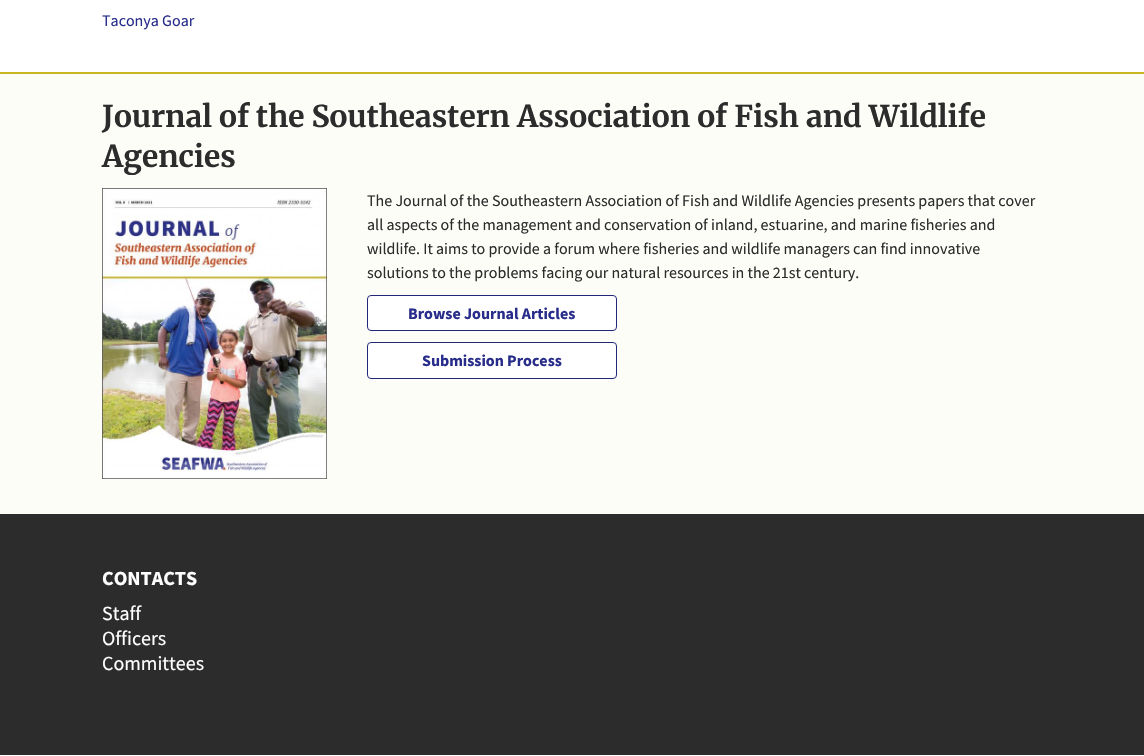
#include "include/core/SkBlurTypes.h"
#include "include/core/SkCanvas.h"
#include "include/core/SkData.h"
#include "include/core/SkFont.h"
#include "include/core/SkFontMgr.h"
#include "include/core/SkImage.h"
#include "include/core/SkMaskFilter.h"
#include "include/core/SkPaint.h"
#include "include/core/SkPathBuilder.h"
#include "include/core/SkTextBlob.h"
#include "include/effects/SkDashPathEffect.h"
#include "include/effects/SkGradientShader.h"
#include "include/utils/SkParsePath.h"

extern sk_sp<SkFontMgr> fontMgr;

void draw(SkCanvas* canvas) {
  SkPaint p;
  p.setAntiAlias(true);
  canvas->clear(SK_ColorWHITE);
  p.setColor(SkColorSetRGB(253, 253, 248));
  canvas->drawRect(SkRect::MakeLTRB(0, 74, 1144, 514), p);
  p.setColor(SkColorSetRGB(200, 183, 34));
  canvas->drawRect(SkRect::MakeLTRB(0, 72, 1144, 74), p);
  canvas->drawImageRect(SkImages::DeferredFromEncodedData(SkData::MakeFromFileName("images/1.png")), SkRect::MakeLTRB(102, 188, 327, 479), SkSamplingOptions());
  p.setColor(SK_ColorWHITE);
  canvas->drawRoundRect(SkRect::MakeLTRB(367.5f, 295.5f, 616.5f, 330.5f), 3.5f, 3.5f, p);
  p.setStyle(SkPaint::kStroke_Style);
  p.setStrokeWidth(1);
  p.setColor(SkColorSetRGB(34, 39, 119));
  canvas->drawRoundRect(SkRect::MakeLTRB(367.5f, 295.5f, 616.5f, 330.5f), 3.5f, 3.5f, p);
  p.setStyle(SkPaint::kFill_Style);
  p.setColor(SK_ColorWHITE);
  canvas->drawRoundRect(SkRect::MakeLTRB(367.5f, 342.5f, 616.5f, 378.5f), 3.5f, 3.5f, p);
  p.setStyle(SkPaint::kStroke_Style);
  p.setColor(SkColorSetRGB(34, 39, 119));
  canvas->drawRoundRect(SkRect::MakeLTRB(367.5f, 342.5f, 616.5f, 378.5f), 3.5f, 3.5f, p);
  p.setStyle(SkPaint::kFill_Style);
  p.setColor(SkColorSetRGB(44, 44, 44));
  canvas->drawRect(SkRect::MakeLTRB(0, 514, 1144, 755), p);
  SkFont font1(fontMgr->matchFamilyStyle("Source Sans Pro", SkFontStyle::Normal()), 16);
  font1.setSubpixel(true);
  p.setColor(SkColorSetRGB(40, 45, 139));
  canvas->drawString("Taconya Goar", 102, 26, font1, p);
  SkFont font2(fontMgr->matchFamilyStyle("Merriweather", SkFontStyle::Bold()), 30);
  font2.setSubpixel(true);
  p.setColor(SkColorSetRGB(44, 44, 44));
  canvas->drawString("Journal of the Southeastern Association of Fish and Wildlife", 102, 127, font2, p);
  canvas->drawString("Agencies", 102, 167, font2, p);
  canvas->drawString("The Journal of the Southeastern Association of Fish and Wildlife Agencies presents papers that cover", 367, 206, font1, p);
  canvas->drawString("all aspects of the management and conservation of inland, estuarine, and marine fisheries and", 367, 230, font1, p);
  canvas->drawString("wildlife. It aims to provide a forum where fisheries and wildlife managers can find innovative", 367, 254, font1, p);
  canvas->drawString("solutions to the problems facing our natural resources in the 21st century.", 367, 278, font1, p);
  SkFont font3(fontMgr->matchFamilyStyle("Source Sans Pro", SkFontStyle::Bold()), 16);
  font3.setSubpixel(true);
  p.setColor(SkColorSetRGB(40, 45, 139));
  canvas->drawString("Browse Journal Articles", 408, 319, font3, p);
  canvas->drawString("Submission Process", 422, 366, font3, p);
  SkFont font4(fontMgr->matchFamilyStyle("Source Sans Pro", SkFontStyle::Bold()), 20);
  font4.setSubpixel(true);
  p.setColor(SK_ColorWHITE);
  canvas->drawString("CONTACTS", 102, 585, font4, p);
  SkFont font5(fontMgr->matchFamilyStyle("Source Sans Pro", SkFontStyle::Normal()), 20);
  font5.setSubpixel(true);
  canvas->drawString("Staff", 102, 620, font5, p);
  canvas->drawString("Officers", 102, 645, font5, p);
  canvas->drawString("Committees", 102, 670, font5, p);
}
